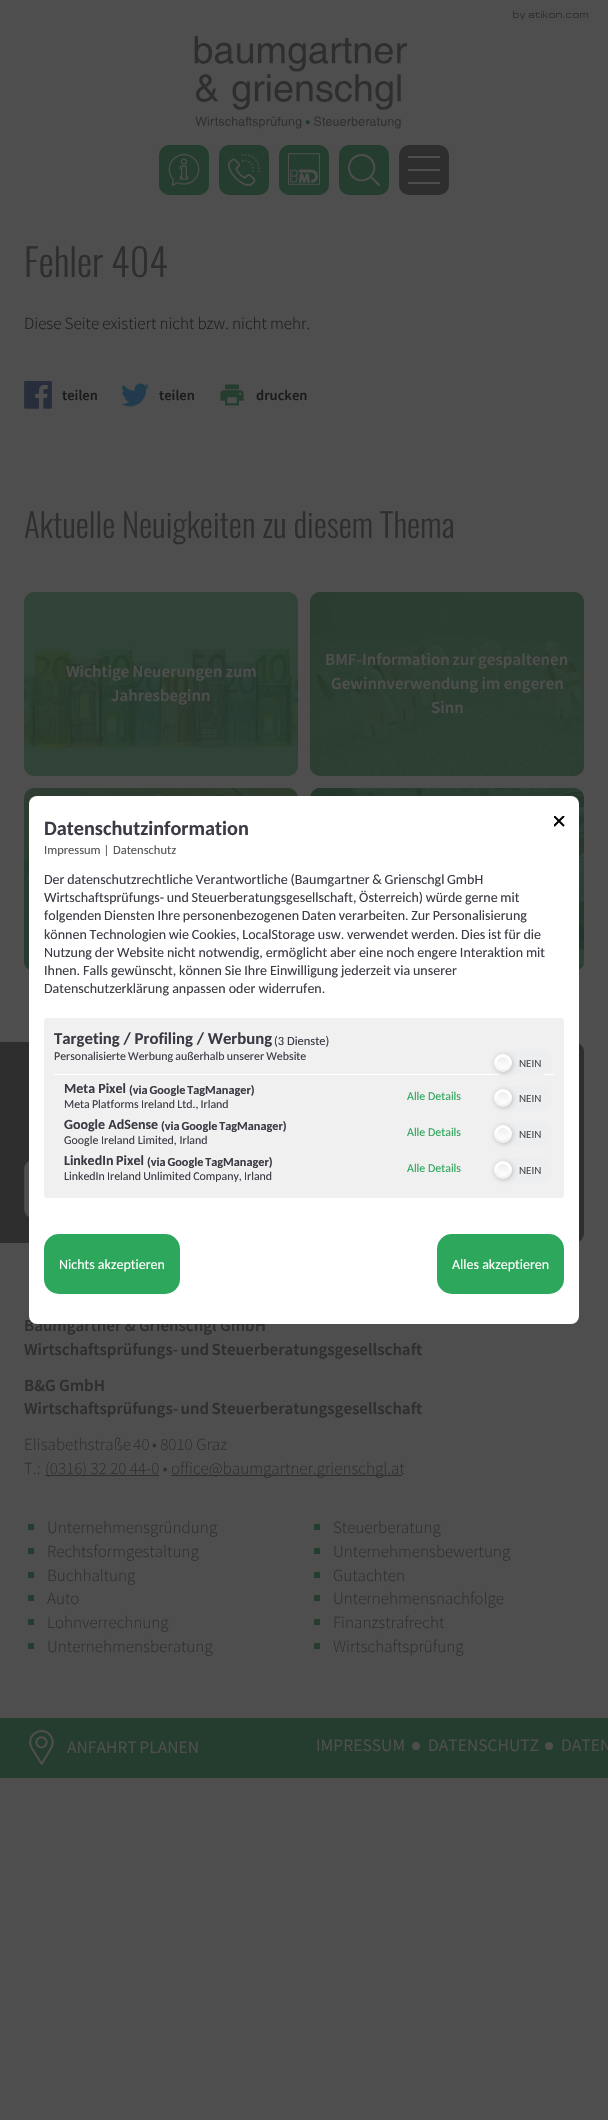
#include "include/core/SkBlurTypes.h"
#include "include/core/SkCanvas.h"
#include "include/core/SkData.h"
#include "include/core/SkFont.h"
#include "include/core/SkFontMgr.h"
#include "include/core/SkImage.h"
#include "include/core/SkMaskFilter.h"
#include "include/core/SkPaint.h"
#include "include/core/SkPathBuilder.h"
#include "include/core/SkTextBlob.h"
#include "include/effects/SkDashPathEffect.h"
#include "include/effects/SkGradientShader.h"
#include "include/utils/SkParsePath.h"

extern sk_sp<SkFontMgr> fontMgr;

void draw(SkCanvas* canvas) {
  SkPaint p;
  p.setAntiAlias(true);
  auto spacedText = [&](const char* s, float x, float y, const SkFont& font, const SkPaint& ink, float letter, float word) {
    std::vector<SkGlyphID> glyphs(font.countText(s, strlen(s), SkTextEncoding::kUTF8));
    std::vector<float> xs(glyphs.size());
    font.textToGlyphs(s, strlen(s), SkTextEncoding::kUTF8, glyphs);
    font.getXPos(glyphs, xs, x);
    float extra = 0;
    for (size_t i = 0; i < glyphs.size(); i++) {
      xs[i] += extra;
      extra += letter + word * (glyphs[i] == font.unicharToGlyph(' '));
    }
    canvas->drawTextBlob(SkTextBlob::MakeFromPosHGlyphs(glyphs, xs, y, font), 0, 0, ink);
  };
  canvas->clear(SkColorSetRGB(78, 78, 78));
  canvas->drawImageRect(SkImages::DeferredFromEncodedData(SkData::MakeFromFileName("images/1.png")), SkRect::MakeLTRB(513, 11, 588, 20), SkSamplingOptions());
  canvas->drawImageRect(SkImages::DeferredFromEncodedData(SkData::MakeFromFileName("images/2.png")), SkRect::MakeLTRB(194, 36, 407, 129), SkSamplingOptions());
  p.setColor(SkColorSetRGB(36, 61, 46));
  canvas->drawRoundRect(SkRect::MakeLTRB(159, 145, 209, 195), 10, 10, p);
  canvas->drawImageRect(SkImages::DeferredFromEncodedData(SkData::MakeFromFileName("images/3.png")), SkRect::MakeLTRB(168, 154, 200, 186), SkSamplingOptions());
  canvas->drawRoundRect(SkRect::MakeLTRB(219, 145, 269, 195), 10, 10, p);
  canvas->drawImageRect(SkImages::DeferredFromEncodedData(SkData::MakeFromFileName("images/4.png")), SkRect::MakeLTRB(228, 154, 260, 186), SkSamplingOptions());
  canvas->drawRoundRect(SkRect::MakeLTRB(279, 145, 329, 195), 10, 10, p);
  canvas->drawImageRect(SkImages::DeferredFromEncodedData(SkData::MakeFromFileName("images/5.png")), SkRect::MakeLTRB(288, 153, 320, 185), SkSamplingOptions());
  canvas->drawRoundRect(SkRect::MakeLTRB(339, 145, 389, 195), 10, 10, p);
  canvas->drawImageRect(SkImages::DeferredFromEncodedData(SkData::MakeFromFileName("images/6.png")), SkRect::MakeLTRB(348, 154, 380, 186), SkSamplingOptions());
  p.setColor(SkColorSetRGB(46, 46, 46));
  canvas->drawRoundRect(SkRect::MakeLTRB(399, 145, 449, 195), 10, 10, p);
  p.setColor(SkColorSetRGB(78, 78, 78));
  canvas->drawRect(SkRect::MakeLTRB(408, 156, 440, 158), p);
  canvas->drawRect(SkRect::MakeLTRB(408, 169, 440, 171), p);
  canvas->drawRect(SkRect::MakeLTRB(408, 182, 440, 184), p);
  canvas->drawImageRect(SkImages::DeferredFromEncodedData(SkData::MakeFromFileName("images/7.png")), SkRect::MakeLTRB(24, 381, 52, 409), SkSamplingOptions());
  canvas->drawImageRect(SkImages::DeferredFromEncodedData(SkData::MakeFromFileName("images/8.png")), SkRect::MakeLTRB(121, 383, 149, 407), SkSamplingOptions());
  canvas->drawImageRect(SkImages::DeferredFromEncodedData(SkData::MakeFromFileName("images/9.png")), SkRect::MakeLTRB(220, 384, 244, 406), SkSamplingOptions());
  canvas->drawImageRect(SkImages::DeferredFromEncodedData(SkData::MakeFromFileName("images/10.png")), SkRect::MakeLTRB(24, 641, 298, 750), SkSamplingOptions());
  p.setColor(SkColorSetARGB(179, 36, 61, 46));
  canvas->drawRoundRect(SkRect::MakeLTRB(24, 592, 298, 776), 10, 10, p);
  canvas->drawImageRect(SkImages::DeferredFromEncodedData(SkData::MakeFromFileName("images/11.png")), SkRect::MakeLTRB(310, 592, 584, 776), SkSamplingOptions());
  canvas->drawRoundRect(SkRect::MakeLTRB(310, 592, 584, 776), 10, 10, p);
  canvas->drawImageRect(SkImages::DeferredFromEncodedData(SkData::MakeFromFileName("images/12.png")), SkRect::MakeLTRB(24, 788, 298, 970), SkSamplingOptions());
  canvas->drawRoundRect(SkRect::MakeLTRB(24, 788, 298, 971), 10, 10, p);
  canvas->drawImageRect(SkImages::DeferredFromEncodedData(SkData::MakeFromFileName("images/13.png")), SkRect::MakeLTRB(310, 788, 584, 970), SkSamplingOptions());
  canvas->drawRoundRect(SkRect::MakeLTRB(310, 788, 584, 971), 10, 10, p);
  p.setColor(SkColorSetRGB(46, 46, 46));
  canvas->drawPath(SkPathBuilder().moveTo(0, 1042).lineTo(574, 1042).cubicTo(579.5f, 1042, 584, 1046.5f, 584, 1052).lineTo(584, 1233).cubicTo(584, 1238.5f, 579.5f, 1243, 574, 1243).lineTo(0, 1243).close().detach(), p);
  p.setColor(SkColorSetRGB(78, 78, 78));
  canvas->drawPath(SkPathBuilder().moveTo(34, 1159.5f).lineTo(410.5f, 1159.5f).lineTo(410.5f, 1218.5f).lineTo(34, 1218.5f).cubicTo(29, 1218.5f, 24.5f, 1214, 24.5f, 1209).lineTo(24.5f, 1169).cubicTo(24.5f, 1164, 29, 1159.5f, 34, 1159.5f).close().detach(), p);
  p.setStyle(SkPaint::kStroke_Style);
  p.setStrokeWidth(1);
  p.setColor(SkColorSetRGB(71, 71, 71));
  canvas->drawPath(SkPathBuilder().moveTo(34, 1159.5f).lineTo(410.5f, 1159.5f).lineTo(410.5f, 1218.5f).lineTo(34, 1218.5f).cubicTo(29, 1218.5f, 24.5f, 1214, 24.5f, 1209).lineTo(24.5f, 1169).cubicTo(24.5f, 1164, 29, 1159.5f, 34, 1159.5f).close().detach(), p);
  p.setStyle(SkPaint::kFill_Style);
  p.setColor(SkColorSetRGB(46, 46, 46));
  canvas->drawRect(SkRect::MakeLTRB(45, 1475, 159, 1476), p);
  canvas->drawRect(SkRect::MakeLTRB(171, 1475, 402, 1476), p);
  p.setColor(SkColorSetRGB(36, 61, 46));
  canvas->drawRect(SkRect::MakeLTRB(28, 1524, 34, 1530), p);
  canvas->drawRect(SkRect::MakeLTRB(314, 1524, 320, 1530), p);
  canvas->drawRect(SkRect::MakeLTRB(28, 1548, 34, 1554), p);
  canvas->drawRect(SkRect::MakeLTRB(314, 1548, 320, 1554), p);
  canvas->drawRect(SkRect::MakeLTRB(28, 1572, 34, 1578), p);
  canvas->drawRect(SkRect::MakeLTRB(314, 1572, 320, 1578), p);
  canvas->drawRect(SkRect::MakeLTRB(28, 1595, 34, 1601), p);
  canvas->drawRect(SkRect::MakeLTRB(314, 1595, 320, 1601), p);
  canvas->drawRect(SkRect::MakeLTRB(28, 1619, 34, 1625), p);
  canvas->drawRect(SkRect::MakeLTRB(314, 1619, 320, 1625), p);
  canvas->drawRect(SkRect::MakeLTRB(28, 1643, 34, 1649), p);
  canvas->drawRect(SkRect::MakeLTRB(314, 1643, 320, 1649), p);
  canvas->drawRect(SkRect::MakeLTRB(0, 1718, 608, 1778), p);
  canvas->drawImageRect(SkImages::DeferredFromEncodedData(SkData::MakeFromFileName("images/14.png")), SkRect::MakeLTRB(29, 1730, 54, 1765), SkSamplingOptions());
  p.setColor(SkColorSetRGB(78, 78, 78));
  canvas->drawCircle(416, 1746, 4, p);
  canvas->drawCircle(549, 1746, 4, p);
  SkFont font1(fontMgr->matchFamilyStyle("Oswald", SkFontStyle(300, SkFontStyle::kNormal_Width, SkFontStyle::kUpright_Slant)), 38);
  font1.setSubpixel(true);
  p.setColor(SkColorSetRGB(46, 46, 46));
  canvas->drawString("Fehler 404", 24, 277, font1, p);
  SkFont font2(fontMgr->matchFamilyStyle("Source Sans Pro", SkFontStyle(300, SkFontStyle::kNormal_Width, SkFontStyle::kUpright_Slant)), 17);
  font2.setSubpixel(true);
  p.setColor(SkColorSetRGB(27, 27, 27));
  spacedText("Diese Seite existiert nicht bzw. nicht mehr.", 24, 329, font2, p, 0, -0.25f);
  SkFont font3(fontMgr->matchFamilyStyle("Source Sans Pro", SkFontStyle(600, SkFontStyle::kNormal_Width, SkFontStyle::kUpright_Slant)), 14.5f);
  font3.setSubpixel(true);
  canvas->drawString("teilen", 62, 400, font3, p);
  canvas->drawString("teilen", 159, 400, font3, p);
  canvas->drawString("drucken", 256, 400, font3, p);
  SkFont font4(fontMgr->matchFamilyStyle("Oswald", SkFontStyle(300, SkFontStyle::kNormal_Width, SkFontStyle::kUpright_Slant)), 33);
  font4.setSubpixel(true);
  p.setColor(SkColorSetRGB(46, 46, 46));
  canvas->drawString("Aktuelle Neuigkeiten zu diesem Thema", 24, 538, font4, p);
  SkFont font5(fontMgr->matchFamilyStyle("Source Sans Pro", SkFontStyle(600, SkFontStyle::kNormal_Width, SkFontStyle::kUpright_Slant)), 17);
  font5.setSubpixel(true);
  p.setColor(SkColorSetRGB(78, 78, 78));
  spacedText("Wichtige Neuerungen zum", 66, 677, font5, p, 0, -0.5f);
  canvas->drawString("Jahresbeginn", 111, 701, font5, p);
  spacedText("BMF-Information zur gespaltenen", 325, 665, font5, p, 0, -1);
  canvas->drawString("Gewinnverwendung im engeren", 331, 689, font5, p);
  canvas->drawString("Sinn", 431, 713, font5, p);
  p.setColor(SkColorSetRGB(46, 46, 46));
  canvas->drawString("Baumgartner & Grienschgl GmbH", 24, 1331, font5, p);
  spacedText("Wirtschaftsprüfungs- und Steuerberatungsgesellschaft", 24, 1355, font5, p, 0, -1);
  canvas->drawString("B&G GmbH", 24, 1391, font5, p);
  spacedText("Wirtschaftsprüfungs- und Steuerberatungsgesellschaft", 24, 1414, font5, p, 0, -1);
  spacedText("Elisabethstraße 40", 24, 1450, font2, p, 0, -1);
  canvas->drawString("• 8010 Graz", 152, 1450, font2, p);
  canvas->drawString("T.:", 24, 1474, font2, p);
  canvas->drawString("(0316) 32 20 44-0 •", 45, 1474, font2, p);
  canvas->drawString("office@baumgartner.grienschgl.at", 171, 1474, font2, p);
  canvas->drawString("Unternehmensgründung", 47, 1533, font2, p);
  canvas->drawString("Steuerberatung", 333, 1533, font2, p);
  canvas->drawString("Rechtsformgestaltung", 47, 1557, font2, p);
  canvas->drawString("Unternehmensbewertung", 333, 1557, font2, p);
  canvas->drawString("Buchhaltung", 47, 1581, font2, p);
  canvas->drawString("Gutachten", 333, 1581, font2, p);
  canvas->drawString("Auto", 47, 1604, font2, p);
  canvas->drawString("Unternehmensnachfolge", 333, 1604, font2, p);
  canvas->drawString("Lohnverrechnung", 47, 1628, font2, p);
  canvas->drawString("Finanzstrafrecht", 333, 1628, font2, p);
  canvas->drawString("Unternehmensberatung", 47, 1652, font2, p);
  canvas->drawString("Wirtschaftsprüfung", 333, 1652, font2, p);
  SkFont font6(fontMgr->matchFamilyStyle("Source Sans Pro", SkFontStyle::Normal()), 17.5f);
  font6.setSubpixel(true);
  p.setColor(SkColorSetRGB(78, 78, 78));
  spacedText("ANFAHRT PLANEN", 67, 1753, font6, p, 0, -1);
  canvas->drawString("IMPRESSUM", 316, 1751, font6, p);
  canvas->drawString("DATENSCHUTZ", 428, 1751, font6, p);
  canvas->drawString("DATEN", 561, 1751, font6, p);
  p.setColor(SK_ColorWHITE);
  canvas->drawRoundRect(SkRect::MakeLTRB(29, 796, 579, 1324), 8, 8, p);
  SkFont font7(fontMgr->matchFamilyStyle("Carlito", SkFontStyle::Bold()), 20.25f);
  font7.setSubpixel(true);
  p.setColor(SkColorSetRGB(59, 59, 69));
  canvas->drawString("Datenschutzinformation", 44, 835, font7, p);
  canvas->save();
  canvas->clipRect(SkRect::MakeLTRB(554, 816, 578, 840));
  p.setStyle(SkPaint::kStroke_Style);
  p.setStrokeWidth(2);
  p.setColor(SK_ColorBLACK);
  canvas->drawPath(SkPathBuilder().moveTo(554, 816).lineTo(564, 826).moveTo(554, 826).lineTo(564, 816).detach(), p);
  canvas->restore();
  SkFont font8(fontMgr->matchFamilyStyle("Carlito", SkFontStyle::Normal()), 12.5f);
  font8.setSubpixel(true);
  p.setStyle(SkPaint::kFill_Style);
  p.setColor(SkColorSetRGB(85, 85, 85));
  canvas->drawString("Impressum |", 44, 854, font8, p);
  canvas->drawString("Datenschutz", 113, 854, font8, p);
  SkFont font9(fontMgr->matchFamilyStyle("Carlito", SkFontStyle::Normal()), 14);
  font9.setSubpixel(true);
  p.setColor(SkColorSetRGB(59, 59, 69));
  spacedText("Der datenschutzrechtliche Verantwortliche (Baumgartner & Grienschgl GmbH", 44, 884, font9, p, 0, -0.5f);
  spacedText("Wirtschaftsprüfungs- und Steuerberatungsgesellschaft, Österreich) würde gerne mit", 44, 902, font9, p, 0, -0.5f);
  spacedText("folgenden Diensten Ihre personenbezogenen Daten verarbeiten. Zur Personalisierung", 44, 920, font9, p, 0, -0.5f);
  spacedText("können Technologien wie Cookies, LocalStorage usw. verwendet werden. Dies ist für die", 44, 939, font9, p, 0, -0.4f);
  spacedText("Nutzung der Website nicht notwendig, ermöglicht aber eine noch engere Interaktion mit", 44, 957, font9, p, 0, -0.25f);
  spacedText("Ihnen. Falls gewünscht, können Sie Ihre Einwilligung jederzeit via unserer", 44, 975, font9, p, 0, -0.25f);
  canvas->drawString("Datenschutzerklärung anpassen oder widerrufen.", 44, 993, font9, p);
  p.setColor(SkColorSetRGB(240, 240, 240));
  canvas->drawRoundRect(SkRect::MakeLTRB(44, 1018, 564, 1198), 3, 3, p);
  SkFont font10(fontMgr->matchFamilyStyle("Carlito", SkFontStyle::Bold()), 16.75f);
  font10.setSubpixel(true);
  p.setColor(SkColorSetRGB(59, 59, 69));
  canvas->drawString("Targeting / Profiling / Werbung", 54, 1044, font10, p);
  canvas->drawString("(3 Dienste)", 274, 1045, font8, p);
  SkFont font11(fontMgr->matchFamilyStyle("Carlito", SkFontStyle::Normal()), 11.9f);
  font11.setSubpixel(true);
  spacedText("Personalisierte Werbung außerhalb unserer Website", 54, 1060, font11, p, 0, -0.5f);
  p.setColor(SK_ColorWHITE);
  canvas->drawRect(SkRect::MakeLTRB(54, 1074, 554, 1075), p);
  p.setColor(SkColorSetRGB(236, 238, 239));
  canvas->drawRoundRect(SkRect::MakeLTRB(491, 1051, 552, 1075), 12, 12, p);
  p.setColor(SkColorSetARGB(51, 0, 0, 0));
  p.setMaskFilter(SkMaskFilter::MakeBlur(kNormal_SkBlurStyle, 2.5f));
  canvas->drawRoundRect(SkRect::MakeLTRB(495, 1055, 513, 1073), 9, 9, p);
  p.setMaskFilter(nullptr);
  {
    const SkColor colors[] = {SK_ColorWHITE, SkColorSetRGB(240, 240, 240)};
    const float stops[] = {0.4f, 1};
    const SkPoint ends[] = {{503, 1054}, {503, 1072}};
    p.setShader(SkGradientShader::MakeLinear(ends, colors, stops, 2, SkTileMode::kClamp));
    p.setAlpha(255);
  }
  canvas->drawCircle(503, 1063, 9, p);
  {
    const SkColor colors[] = {SkColorSetRGB(238, 238, 238), SK_ColorWHITE};
    const float stops[] = {0, 1};
    const SkPoint ends[] = {{503, 1057}, {503, 1069}};
    p.setShader(SkGradientShader::MakeLinear(ends, colors, stops, 2, SkTileMode::kClamp));
    p.setAlpha(255);
  }
  canvas->drawCircle(503, 1063, 6, p);
  SkFont font12(fontMgr->matchFamilyStyle("Carlito", SkFontStyle::Normal()), 11);
  font12.setSubpixel(true);
  p.setShader(nullptr);
  p.setColor(SkColorSetRGB(78, 78, 78));
  canvas->drawString("NEIN", 519, 1067, font12, p);
  SkFont font13(fontMgr->matchFamilyStyle("Carlito", SkFontStyle::Bold()), 14);
  font13.setSubpixel(true);
  p.setColor(SkColorSetRGB(59, 59, 69));
  canvas->drawString("Meta Pixel", 64, 1093, font13, p);
  SkFont font14(fontMgr->matchFamilyStyle("Carlito", SkFontStyle::Bold()), 12.25f);
  font14.setSubpixel(true);
  spacedText("(via Google TagManager)", 129, 1094, font14, p, 0, -1);
  spacedText("Meta Platforms Ireland Ltd., Irland", 64, 1108, font11, p, 0, -0.5f);
  p.setColor(SkColorSetRGB(45, 167, 92));
  canvas->drawString("Alle Details", 407, 1100, font11, p);
  p.setColor(SkColorSetRGB(236, 238, 239));
  canvas->drawRoundRect(SkRect::MakeLTRB(491, 1086, 552, 1110), 12, 12, p);
  p.setColor(SkColorSetARGB(51, 0, 0, 0));
  p.setMaskFilter(SkMaskFilter::MakeBlur(kNormal_SkBlurStyle, 2.5f));
  canvas->drawRoundRect(SkRect::MakeLTRB(495, 1090, 513, 1108), 9, 9, p);
  p.setMaskFilter(nullptr);
  {
    const SkColor colors[] = {SK_ColorWHITE, SkColorSetRGB(240, 240, 240)};
    const float stops[] = {0.4f, 1};
    const SkPoint ends[] = {{503, 1089}, {503, 1107}};
    p.setShader(SkGradientShader::MakeLinear(ends, colors, stops, 2, SkTileMode::kClamp));
    p.setAlpha(255);
  }
  canvas->drawCircle(503, 1098, 9, p);
  {
    const SkColor colors[] = {SkColorSetRGB(238, 238, 238), SK_ColorWHITE};
    const float stops[] = {0, 1};
    const SkPoint ends[] = {{503, 1092}, {503, 1104}};
    p.setShader(SkGradientShader::MakeLinear(ends, colors, stops, 2, SkTileMode::kClamp));
    p.setAlpha(255);
  }
  canvas->drawCircle(503, 1098, 6, p);
  p.setShader(nullptr);
  p.setColor(SkColorSetRGB(78, 78, 78));
  canvas->drawString("NEIN", 519, 1102, font12, p);
  p.setColor(SkColorSetRGB(59, 59, 69));
  canvas->drawString("Google AdSense", 64, 1129, font13, p);
  spacedText("(via Google TagManager)", 161, 1130, font14, p, 0, -1);
  canvas->drawString("Google Ireland Limited, Irland", 64, 1144, font11, p);
  p.setColor(SkColorSetRGB(45, 167, 92));
  canvas->drawString("Alle Details", 407, 1136, font11, p);
  p.setColor(SkColorSetRGB(236, 238, 239));
  canvas->drawRoundRect(SkRect::MakeLTRB(491, 1122, 552, 1146), 12, 12, p);
  p.setColor(SkColorSetARGB(51, 0, 0, 0));
  p.setMaskFilter(SkMaskFilter::MakeBlur(kNormal_SkBlurStyle, 2.5f));
  canvas->drawRoundRect(SkRect::MakeLTRB(495, 1126, 513, 1144), 9, 9, p);
  p.setMaskFilter(nullptr);
  {
    const SkColor colors[] = {SK_ColorWHITE, SkColorSetRGB(240, 240, 240)};
    const float stops[] = {0.4f, 1};
    const SkPoint ends[] = {{503, 1125}, {503, 1143}};
    p.setShader(SkGradientShader::MakeLinear(ends, colors, stops, 2, SkTileMode::kClamp));
    p.setAlpha(255);
  }
  canvas->drawCircle(503, 1134, 9, p);
  {
    const SkColor colors[] = {SkColorSetRGB(238, 238, 238), SK_ColorWHITE};
    const float stops[] = {0, 1};
    const SkPoint ends[] = {{503, 1128}, {503, 1140}};
    p.setShader(SkGradientShader::MakeLinear(ends, colors, stops, 2, SkTileMode::kClamp));
    p.setAlpha(255);
  }
  canvas->drawCircle(503, 1134, 6, p);
  p.setShader(nullptr);
  p.setColor(SkColorSetRGB(78, 78, 78));
  canvas->drawString("NEIN", 519, 1138, font12, p);
  p.setColor(SkColorSetRGB(59, 59, 69));
  spacedText("LinkedIn Pixel", 64, 1165, font13, p, 0, -0.5f);
  spacedText("(via Google TagManager)", 147, 1166, font14, p, 0, -1);
  spacedText("LinkedIn Ireland Unlimited Company, Irland", 64, 1180, font11, p, 0, -0.5f);
  p.setColor(SkColorSetRGB(45, 167, 92));
  canvas->drawString("Alle Details", 407, 1172, font11, p);
  p.setColor(SkColorSetRGB(236, 238, 239));
  canvas->drawRoundRect(SkRect::MakeLTRB(491, 1158, 552, 1182), 12, 12, p);
  p.setColor(SkColorSetARGB(51, 0, 0, 0));
  p.setMaskFilter(SkMaskFilter::MakeBlur(kNormal_SkBlurStyle, 2.5f));
  canvas->drawRoundRect(SkRect::MakeLTRB(495, 1162, 513, 1180), 9, 9, p);
  p.setMaskFilter(nullptr);
  {
    const SkColor colors[] = {SK_ColorWHITE, SkColorSetRGB(240, 240, 240)};
    const float stops[] = {0.4f, 1};
    const SkPoint ends[] = {{503, 1161}, {503, 1179}};
    p.setShader(SkGradientShader::MakeLinear(ends, colors, stops, 2, SkTileMode::kClamp));
    p.setAlpha(255);
  }
  canvas->drawCircle(503, 1170, 9, p);
  {
    const SkColor colors[] = {SkColorSetRGB(238, 238, 238), SK_ColorWHITE};
    const float stops[] = {0, 1};
    const SkPoint ends[] = {{503, 1164}, {503, 1176}};
    p.setShader(SkGradientShader::MakeLinear(ends, colors, stops, 2, SkTileMode::kClamp));
    p.setAlpha(255);
  }
  canvas->drawCircle(503, 1170, 6, p);
  p.setShader(nullptr);
  p.setColor(SkColorSetRGB(78, 78, 78));
  canvas->drawString("NEIN", 519, 1174, font12, p);
  p.setColor(SkColorSetRGB(45, 167, 92));
  canvas->drawRoundRect(SkRect::MakeLTRB(44, 1234, 180, 1294), 15, 15, p);
  p.setColor(SK_ColorWHITE);
  canvas->drawString("Nichts akzeptieren", 59, 1269, font9, p);
  p.setColor(SkColorSetRGB(45, 167, 92));
  canvas->drawRoundRect(SkRect::MakeLTRB(437, 1234, 564, 1294), 15, 15, p);
  p.setColor(SK_ColorWHITE);
  canvas->drawString("Alles akzeptieren", 452, 1269, font9, p);
}
